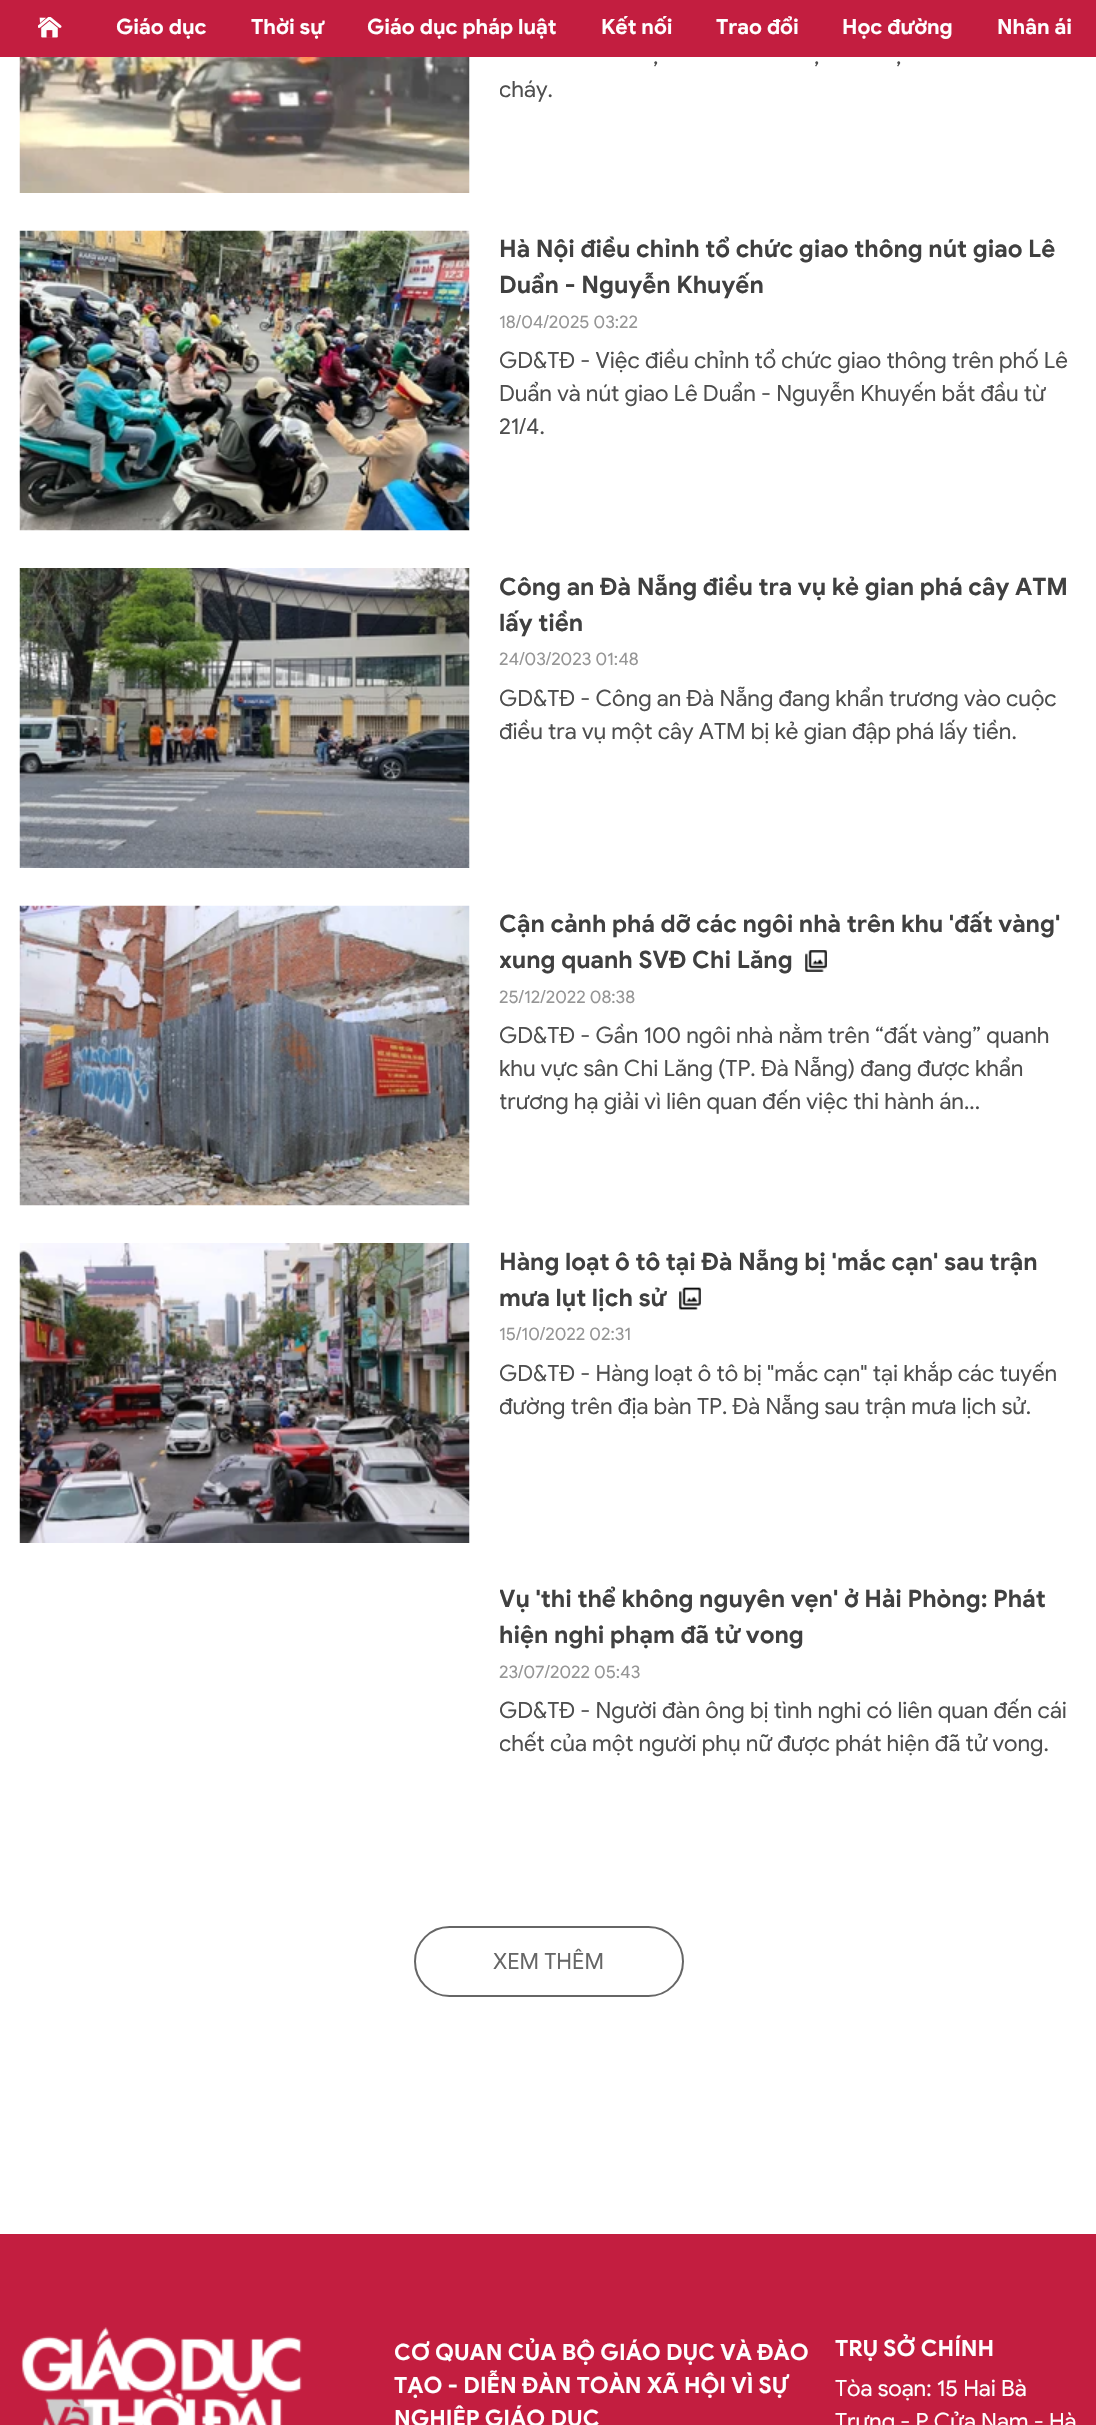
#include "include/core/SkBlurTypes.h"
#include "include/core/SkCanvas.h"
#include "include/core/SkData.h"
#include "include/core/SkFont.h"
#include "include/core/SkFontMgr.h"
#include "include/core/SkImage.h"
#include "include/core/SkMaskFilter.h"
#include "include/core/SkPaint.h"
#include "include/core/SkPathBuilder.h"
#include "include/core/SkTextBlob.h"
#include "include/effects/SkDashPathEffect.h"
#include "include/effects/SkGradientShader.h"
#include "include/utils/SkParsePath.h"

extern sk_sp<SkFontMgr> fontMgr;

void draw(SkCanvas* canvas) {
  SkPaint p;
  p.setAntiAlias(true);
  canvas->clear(SK_ColorWHITE);
  p.setColor(SkColorSetRGB(195, 30, 64));
  canvas->drawRect(SkRect::MakeLTRB(0, 0, 1096, 57), p);
  canvas->drawImageRect(SkImages::DeferredFromEncodedData(SkData::MakeFromFileName("images/1.png")), SkRect::MakeLTRB(38, 17, 62, 38), SkSamplingOptions());
  canvas->drawImageRect(SkImages::DeferredFromEncodedData(SkData::MakeFromFileName("images/2.png")), SkRect::MakeLTRB(19, 57, 470, 193), SkSamplingOptions());
  canvas->drawImageRect(SkImages::DeferredFromEncodedData(SkData::MakeFromFileName("images/3.png")), SkRect::MakeLTRB(19, 230, 470, 531), SkSamplingOptions());
  canvas->drawImageRect(SkImages::DeferredFromEncodedData(SkData::MakeFromFileName("images/4.png")), SkRect::MakeLTRB(19, 568, 470, 868), SkSamplingOptions());
  canvas->drawImageRect(SkImages::DeferredFromEncodedData(SkData::MakeFromFileName("images/5.png")), SkRect::MakeLTRB(19, 905, 470, 1206), SkSamplingOptions());
  canvas->drawImageRect(SkImages::DeferredFromEncodedData(SkData::MakeFromFileName("images/6.png")), SkRect::MakeLTRB(805, 950, 827, 972), SkSamplingOptions());
  canvas->drawImageRect(SkImages::DeferredFromEncodedData(SkData::MakeFromFileName("images/7.png")), SkRect::MakeLTRB(19, 1243, 470, 1543), SkSamplingOptions());
  canvas->drawImageRect(SkImages::DeferredFromEncodedData(SkData::MakeFromFileName("images/8.png")), SkRect::MakeLTRB(679, 1287, 701, 1310), SkSamplingOptions());
  p.setStyle(SkPaint::kStroke_Style);
  p.setStrokeWidth(2);
  p.setColor(SkColorSetRGB(102, 102, 102));
  canvas->drawRoundRect(SkRect::MakeLTRB(415, 1927, 683, 1996), 34.5f, 34.5f, p);
  p.setStyle(SkPaint::kFill_Style);
  p.setColor(SkColorSetRGB(195, 30, 64));
  canvas->drawRect(SkRect::MakeLTRB(0, 2234, 1096, 2425), p);
  canvas->drawImageRect(SkImages::DeferredFromEncodedData(SkData::MakeFromFileName("images/9.png")), SkRect::MakeLTRB(21, 2327, 302, 2425), SkSamplingOptions());
  SkFont font1(fontMgr->matchFamilyStyle("Google Sans", SkFontStyle::Bold()), 21);
  font1.setSubpixel(true);
  p.setColor(SK_ColorWHITE);
  canvas->drawString("Giáo dục", 116, 34, font1, p);
  canvas->drawString("Thời sự", 251, 34, font1, p);
  canvas->drawString("Giáo dục pháp luật", 367, 34, font1, p);
  canvas->drawString("Kết nối", 601, 34, font1, p);
  canvas->drawString("Trao đổi", 716, 34, font1, p);
  canvas->drawString("Học đường", 842, 34, font1, p);
  canvas->drawString("Nhân ái", 997, 34, font1, p);
  SkFont font2(fontMgr->matchFamilyStyle("Google Sans", SkFontStyle::Normal()), 22.5f);
  font2.setSubpixel(true);
  p.setColor(SkColorSetRGB(78, 78, 78));
  canvas->drawString(",", 653, 64, font2, p);
  canvas->drawString(",", 814, 64, font2, p);
  canvas->drawString(",", 896, 64, font2, p);
  canvas->save();
  canvas->clipRect(SkRect::MakeLTRB(500, 6, 1079, 120));
  canvas->drawString("cháy.", 499, 97, font2, p);
  canvas->restore();
  SkFont font3(fontMgr->matchFamilyStyle("Google Sans", SkFontStyle::Bold()), 24);
  font3.setSubpixel(true);
  p.setColor(SkColorSetRGB(64, 64, 64));
  canvas->drawString("Hà Nội điều chỉnh tổ chức giao thông nút giao Lê", 499, 257, font3, p);
  canvas->drawString("Duẩn - Nguyễn Khuyến", 499, 293, font3, p);
  SkFont font4(fontMgr->matchFamilyStyle("Google Sans", SkFontStyle::Normal()), 18);
  font4.setSubpixel(true);
  p.setColor(SkColorSetRGB(149, 149, 149));
  canvas->drawString("18/04/2025 03:22", 499, 328, font4, p);
  p.setColor(SkColorSetRGB(78, 78, 78));
  canvas->drawString("GD&TĐ - Việc điều chỉnh tổ chức giao thông trên phố Lê", 499, 368, font2, p);
  canvas->drawString("Duẩn và nút giao Lê Duẩn - Nguyễn Khuyến bắt đầu từ", 499, 401, font2, p);
  canvas->drawString("21/4.", 499, 434, font2, p);
  canvas->save();
  canvas->clipRect(SkRect::MakeLTRB(500, 569, 1079, 641));
  p.setColor(SkColorSetRGB(64, 64, 64));
  canvas->drawString("Công an Đà Nẵng điều tra vụ kẻ gian phá cây ATM", 499, 595, font3, p);
  canvas->restore();
  canvas->drawString("lấy tiền", 499, 631, font3, p);
  p.setColor(SkColorSetRGB(149, 149, 149));
  canvas->drawString("24/03/2023 01:48", 499, 665, font4, p);
  p.setColor(SkColorSetRGB(78, 78, 78));
  canvas->drawString("GD&TĐ - Công an Đà Nẵng đang khẩn trương vào cuộc", 499, 706, font2, p);
  canvas->save();
  canvas->clipRect(SkRect::MakeLTRB(500, 681, 1079, 747));
  canvas->drawString("điều tra vụ một cây ATM bị kẻ gian đập phá lấy tiền.", 499, 739, font2, p);
  canvas->restore();
  canvas->save();
  canvas->clipRect(SkRect::MakeLTRB(500, 906, 1079, 978));
  p.setColor(SkColorSetRGB(64, 64, 64));
  canvas->drawString("Cận cảnh phá dỡ các ngôi nhà trên khu 'đất vàng'", 499, 932, font3, p);
  canvas->drawString("xung quanh SVĐ Chi Lăng", 499, 968, font3, p);
  canvas->restore();
  p.setColor(SkColorSetRGB(149, 149, 149));
  canvas->drawString("25/12/2022 08:38", 499, 1003, font4, p);
  p.setColor(SkColorSetRGB(78, 78, 78));
  canvas->drawString("GD&TĐ - Gần 100 ngôi nhà nằm trên “đất vàng” quanh", 499, 1043, font2, p);
  canvas->drawString("khu vực sân Chi Lăng (TP. Đà Nẵng) đang được khẩn", 499, 1076, font2, p);
  canvas->save();
  canvas->clipRect(SkRect::MakeLTRB(500, 1019, 1079, 1118));
  canvas->drawString("trương hạ giải vì liên quan đến việc thi hành án...", 499, 1109, font2, p);
  canvas->restore();
  p.setColor(SkColorSetRGB(64, 64, 64));
  canvas->drawString("Hàng loạt ô tô tại Đà Nẵng bị 'mắc cạn' sau trận", 499, 1270, font3, p);
  canvas->drawString("mưa lụt lịch sử", 499, 1306, font3, p);
  p.setColor(SkColorSetRGB(149, 149, 149));
  canvas->drawString("15/10/2022 02:31", 499, 1340, font4, p);
  p.setColor(SkColorSetRGB(78, 78, 78));
  canvas->drawString("GD&TĐ - Hàng loạt ô tô bị \"mắc cạn\" tại khắp các tuyến", 499, 1381, font2, p);
  canvas->save();
  canvas->clipRect(SkRect::MakeLTRB(500, 1356, 1079, 1422));
  canvas->drawString("đường trên địa bàn TP. Đà Nẵng sau trận mưa lịch sử.", 499, 1414, font2, p);
  canvas->restore();
  canvas->save();
  canvas->clipRect(SkRect::MakeLTRB(500, 1581, 1079, 1653));
  p.setColor(SkColorSetRGB(64, 64, 64));
  canvas->drawString("Vụ 'thi thể không nguyên vẹn' ở Hải Phòng: Phát", 499, 1607, font3, p);
  canvas->restore();
  canvas->drawString("hiện nghi phạm đã tử vong", 499, 1643, font3, p);
  p.setColor(SkColorSetRGB(149, 149, 149));
  canvas->drawString("23/07/2022 05:43", 499, 1678, font4, p);
  p.setColor(SkColorSetRGB(78, 78, 78));
  canvas->drawString("GD&TĐ - Người đàn ông bị tình nghi có liên quan đến cái", 499, 1718, font2, p);
  canvas->save();
  canvas->clipRect(SkRect::MakeLTRB(500, 1694, 1079, 1760));
  canvas->drawString("chết của một người phụ nữ được phát hiện đã tử vong.", 499, 1751, font2, p);
  canvas->restore();
  p.setColor(SkColorSetRGB(102, 102, 102));
  canvas->drawString("XEM THÊM", 493, 1969, font2, p);
  SkFont font5(fontMgr->matchFamilyStyle("Google Sans", SkFontStyle::Bold()), 22.5f);
  font5.setSubpixel(true);
  p.setColor(SK_ColorWHITE);
  canvas->drawString("CƠ QUAN CỦA BỘ GIÁO DỤC VÀ ĐÀO", 394, 2360, font5, p);
  canvas->drawString("TẠO - DIỄN ĐÀN TOÀN XÃ HỘI VÌ SỰ", 394, 2393, font5, p);
  canvas->drawString("NGHIỆP GIÁO DỤC", 394, 2426, font5, p);
  canvas->drawString("TRỤ SỞ CHÍNH", 835, 2356, font5, p);
  canvas->drawString("Tòa soạn: 15 Hai Bà", 835, 2396, font2, p);
  canvas->drawString("Trưng - P.Cửa Nam - Hà", 835, 2429, font2, p);
}
